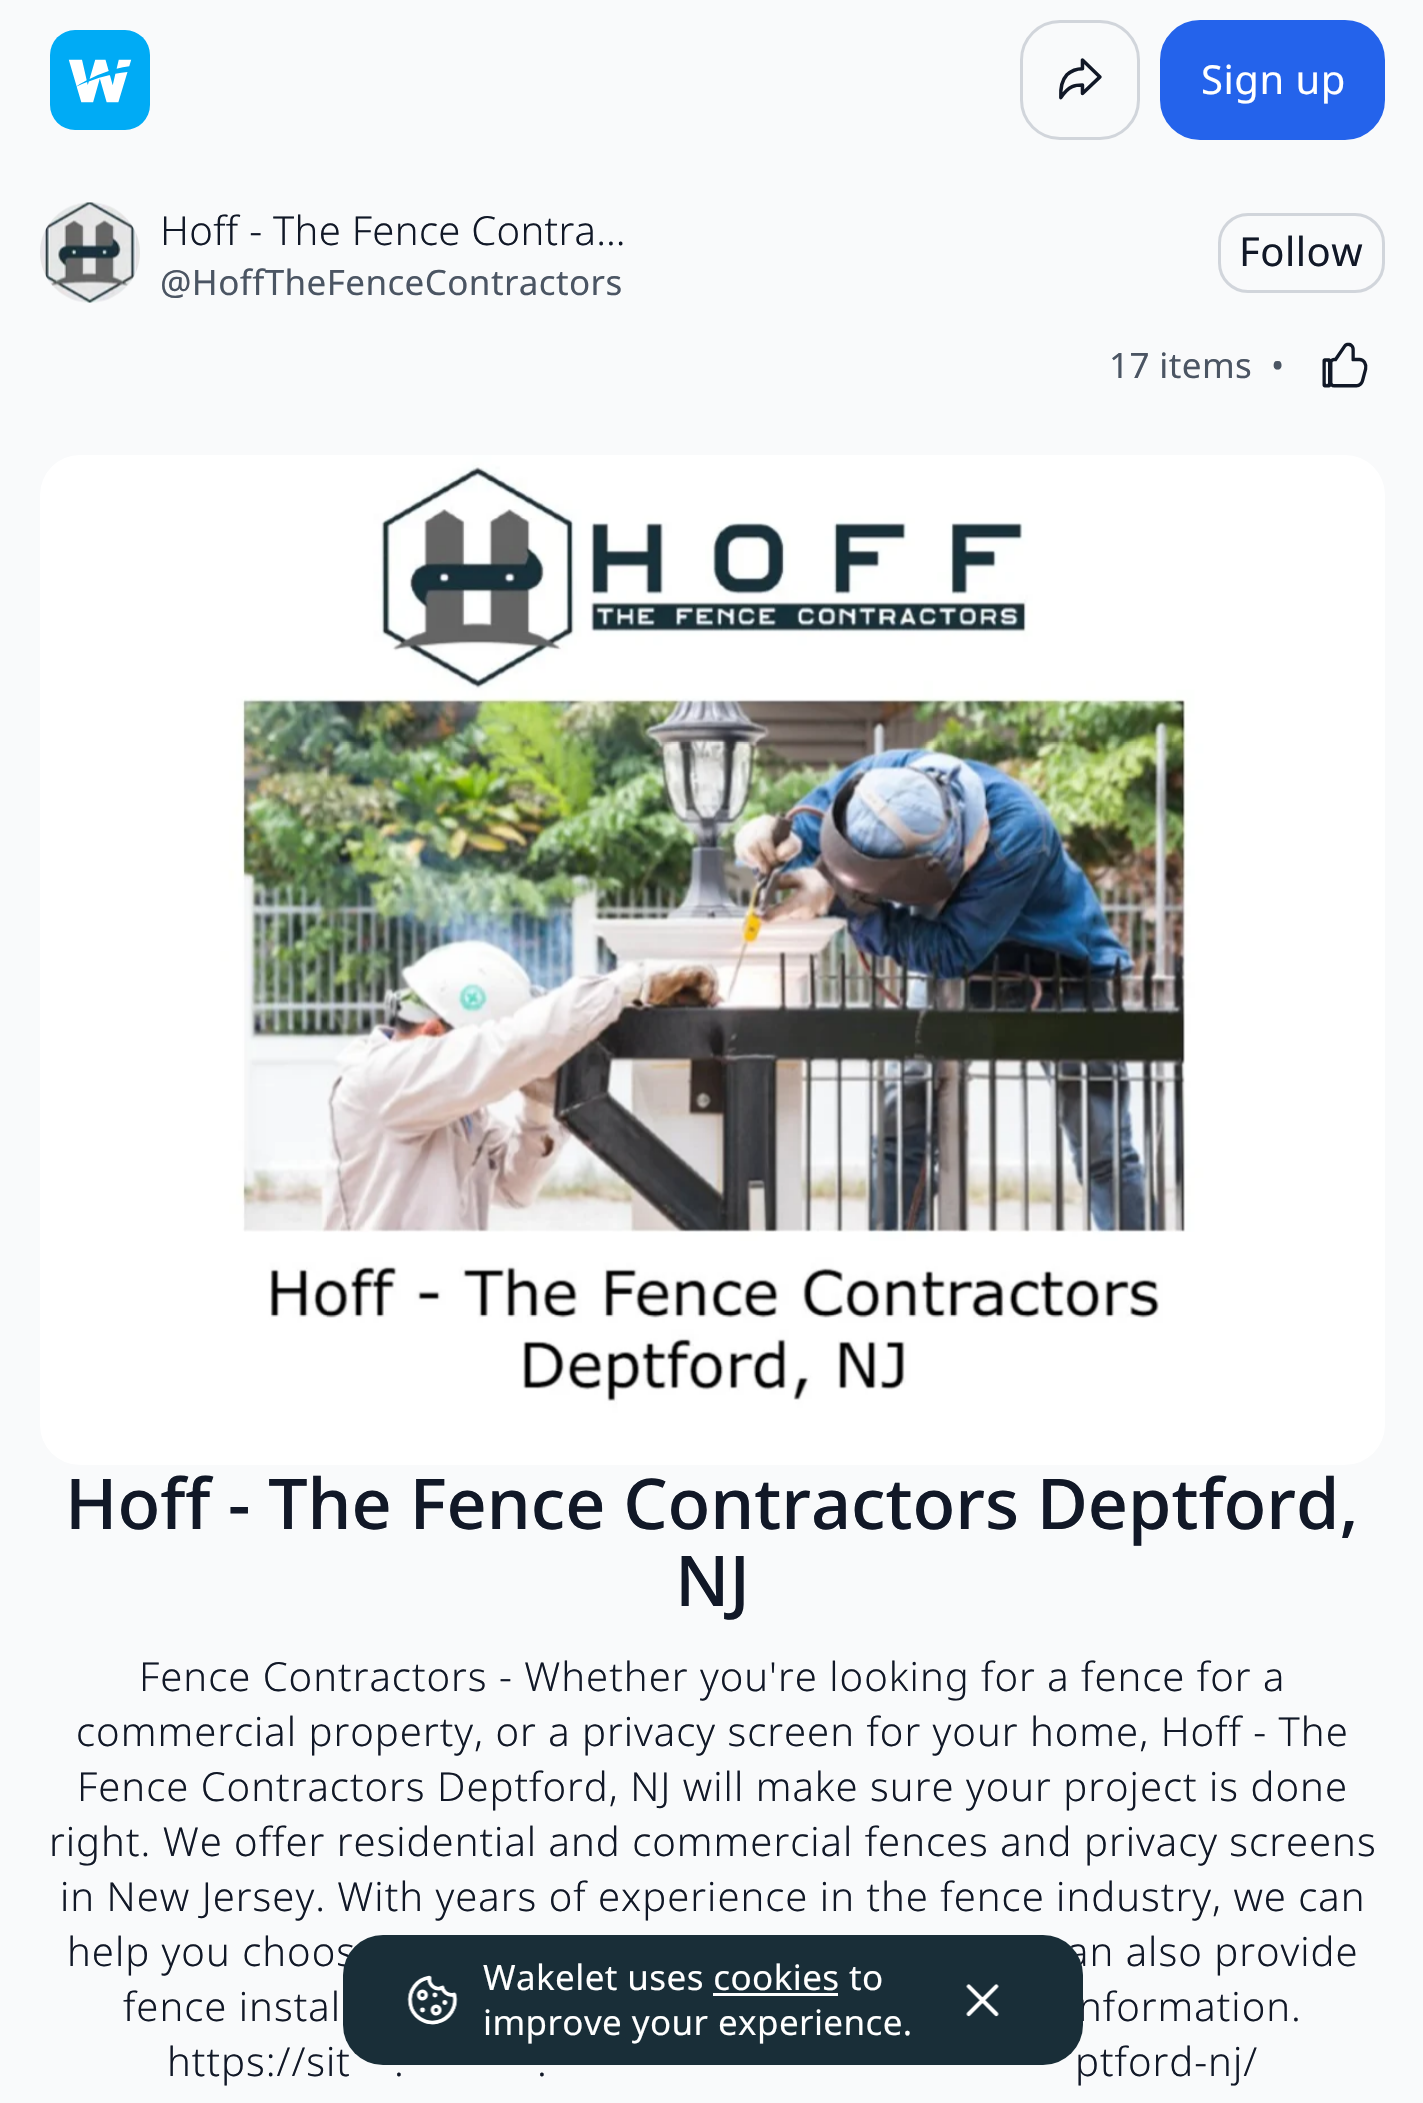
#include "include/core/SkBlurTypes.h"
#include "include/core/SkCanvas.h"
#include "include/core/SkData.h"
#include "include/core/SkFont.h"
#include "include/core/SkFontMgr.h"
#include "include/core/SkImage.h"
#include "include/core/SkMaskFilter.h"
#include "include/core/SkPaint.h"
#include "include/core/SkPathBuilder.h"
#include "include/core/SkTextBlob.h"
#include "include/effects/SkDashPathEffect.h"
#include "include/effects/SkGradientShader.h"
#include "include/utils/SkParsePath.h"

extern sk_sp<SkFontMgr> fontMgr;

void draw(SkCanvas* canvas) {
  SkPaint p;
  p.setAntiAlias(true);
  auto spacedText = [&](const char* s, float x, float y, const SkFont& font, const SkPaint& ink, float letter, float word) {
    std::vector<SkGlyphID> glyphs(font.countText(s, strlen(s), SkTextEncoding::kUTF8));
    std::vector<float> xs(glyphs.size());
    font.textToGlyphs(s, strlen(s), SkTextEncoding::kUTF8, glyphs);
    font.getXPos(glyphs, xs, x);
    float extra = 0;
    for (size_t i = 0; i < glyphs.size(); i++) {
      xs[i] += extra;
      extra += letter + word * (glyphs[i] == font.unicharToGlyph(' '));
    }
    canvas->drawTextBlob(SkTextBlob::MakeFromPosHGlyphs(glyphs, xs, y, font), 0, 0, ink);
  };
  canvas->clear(SkColorSetRGB(249, 250, 251));
  canvas->drawImageRect(SkImages::DeferredFromEncodedData(SkData::MakeFromFileName("images/1.png")), SkRect::MakeLTRB(50, 30, 150, 130), SkSamplingOptions());
  p.setStyle(SkPaint::kStroke_Style);
  p.setStrokeWidth(3);
  p.setColor(SkColorSetRGB(209, 213, 219));
  canvas->drawRoundRect(SkRect::MakeLTRB(1021.5f, 21.5f, 1138.5f, 138.5f), 38.5f, 38.5f, p);
  canvas->drawImageRect(SkImages::DeferredFromEncodedData(SkData::MakeFromFileName("images/2.png")), SkRect::MakeLTRB(1059, 58, 1102, 100), SkSamplingOptions());
  p.setStyle(SkPaint::kFill_Style);
  p.setColor(SkColorSetRGB(36, 99, 235));
  canvas->drawRoundRect(SkRect::MakeLTRB(1161.5f, 21.5f, 1383.5f, 138.5f), 38.5f, 38.5f, p);
  p.setStyle(SkPaint::kStroke_Style);
  canvas->drawRoundRect(SkRect::MakeLTRB(1161.5f, 21.5f, 1383.5f, 138.5f), 38.5f, 38.5f, p);
  canvas->drawImageRect(SkImages::DeferredFromEncodedData(SkData::MakeFromFileName("images/3.png")), SkRect::MakeLTRB(40, 202, 140, 303), SkSamplingOptions());
  p.setColor(SkColorSetRGB(209, 213, 219));
  canvas->drawRoundRect(SkRect::MakeLTRB(1219.5f, 214.5f, 1383.5f, 291.5f), 28.5f, 28.5f, p);
  canvas->drawImageRect(SkImages::DeferredFromEncodedData(SkData::MakeFromFileName("images/4.png")), SkRect::MakeLTRB(1322, 342, 1368, 388), SkSamplingOptions());
  canvas->drawImageRect(SkImages::DeferredFromEncodedData(SkData::MakeFromFileName("images/5.png")), SkRect::MakeLTRB(40, 455, 1385, 1465), SkSamplingOptions());
  SkFont font1(fontMgr->matchFamilyStyle("Noto Sans", SkFontStyle::Normal()), 40);
  font1.setSubpixel(true);
  p.setStyle(SkPaint::kFill_Style);
  p.setColor(SK_ColorWHITE);
  spacedText("Sign up", 1201, 94, font1, p, 0.5f, 0);
  SkFont font2(fontMgr->matchFamilyStyle("Noto Sans", SkFontStyle(300, SkFontStyle::kNormal_Width, SkFontStyle::kUpright_Slant)), 40);
  font2.setSubpixel(true);
  p.setColor(SkColorSetRGB(17, 24, 39));
  spacedText("Hoff - The Fence Contra…", 160, 245, font2, p, 0.3f, 0);
  SkFont font3(fontMgr->matchFamilyStyle("Noto Sans", SkFontStyle::Normal()), 35);
  font3.setSubpixel(true);
  p.setColor(SkColorSetRGB(75, 85, 99));
  spacedText("@HoffTheFenceContractors", 160, 295, font3, p, 0.4f, 0);
  p.setColor(SkColorSetRGB(17, 24, 39));
  spacedText("Follow", 1239, 266, font1, p, 0.5f, 0);
  p.setColor(SkColorSetRGB(75, 85, 99));
  spacedText("17 items", 1109, 378, font3, p, 0.4f, 0);
  spacedText("•", 1271, 378, font3, p, 0.4f, 0);
  SkFont font4(fontMgr->matchFamilyStyle("Noto Sans", SkFontStyle(500, SkFontStyle::kNormal_Width, SkFontStyle::kUpright_Slant)), 70);
  font4.setSubpixel(true);
  p.setColor(SkColorSetRGB(17, 24, 39));
  spacedText("Hoff - The Fence Contractors Deptford,", 65, 1529, font4, p, 0, -0.5f);
  canvas->drawString("NJ", 675, 1606, font4, p);
  spacedText("Fence Contractors - Whether you're looking for a fence for a", 139, 1691, font2, p, 1, 0);
  spacedText("commercial property, or a privacy screen for your home, Hoff - The", 76, 1746, font2, p, 1, 0);
  spacedText("Fence Contractors Deptford, NJ will make sure your project is done", 77, 1801, font2, p, 1, 0);
  spacedText("right. We offer residential and commercial fences and privacy screens", 49, 1856, font2, p, 1, 0);
  spacedText("in New Jersey. With years of experience in the fence industry, we can", 60, 1911, font2, p, 1, 0);
  spacedText("help you choos", 67, 1966, font2, p, 1, 0);
  spacedText("an also provide", 1067, 1966, font2, p, 1, 0);
  spacedText("fence instal", 123, 2021, font2, p, 1, 0);
  spacedText("nformation.", 1078, 2021, font2, p, 1, 0);
  spacedText("https://sit", 167, 2076, font2, p, 1, 0);
  spacedText(".", 394, 2076, font2, p, 1, 0);
  spacedText(".", 537, 2076, font2, p, 1, 0);
  spacedText("ptford-nj/", 1075, 2076, font2, p, 1, 0);
  p.setColor(SkColorSetRGB(25, 46, 56));
  canvas->drawRoundRect(SkRect::MakeLTRB(343, 1935, 1083, 2065), 40, 40, p);
  canvas->drawImageRect(SkImages::DeferredFromEncodedData(SkData::MakeFromFileName("images/6.png")), SkRect::MakeLTRB(407, 1975, 458, 2025), SkSamplingOptions());
  p.setColor(SK_ColorWHITE);
  spacedText("Wakelet uses cookies to", 483, 1990, font3, p, 0.4f, 0);
  canvas->drawRect(SkRect::MakeLTRB(713, 1993, 838, 1996), p);
  spacedText("improve your experience.", 483, 2035, font3, p, 0.4f, 0);
  canvas->drawImageRect(SkImages::DeferredFromEncodedData(SkData::MakeFromFileName("images/7.png")), SkRect::MakeLTRB(966, 1984, 999, 2017), SkSamplingOptions());
}
